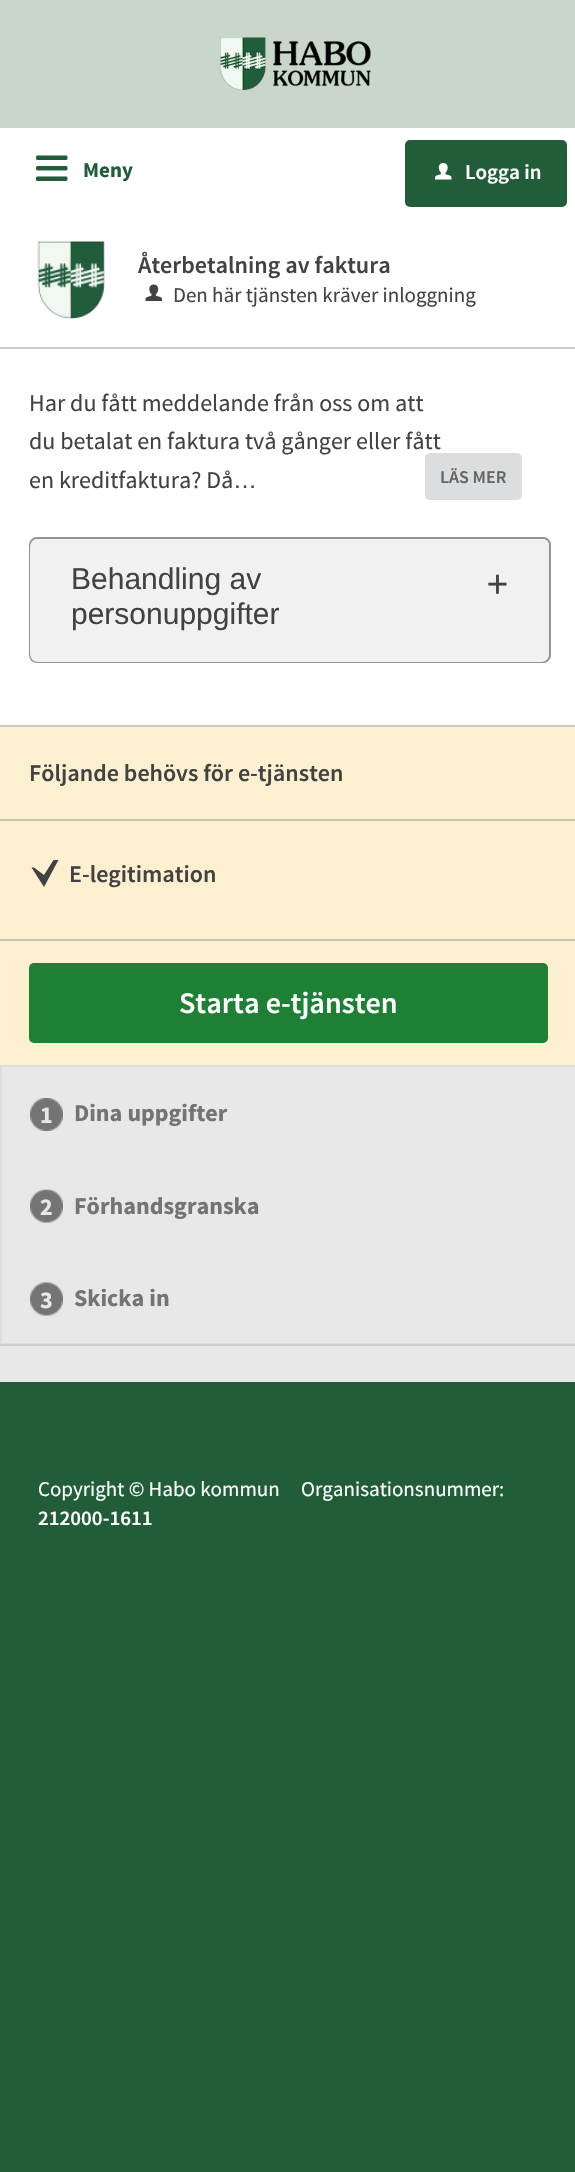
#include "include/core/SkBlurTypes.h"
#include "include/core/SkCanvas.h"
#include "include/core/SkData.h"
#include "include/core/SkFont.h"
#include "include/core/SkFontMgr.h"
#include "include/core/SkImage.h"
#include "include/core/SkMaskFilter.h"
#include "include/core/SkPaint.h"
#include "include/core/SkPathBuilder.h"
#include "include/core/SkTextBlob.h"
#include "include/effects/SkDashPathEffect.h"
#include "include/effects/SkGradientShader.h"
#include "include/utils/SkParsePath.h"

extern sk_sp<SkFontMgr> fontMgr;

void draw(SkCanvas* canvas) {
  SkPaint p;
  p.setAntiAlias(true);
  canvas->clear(SkColorSetRGB(232, 232, 232));
  p.setColor(SkColorSetRGB(200, 215, 201));
  canvas->drawRect(SkRect::MakeLTRB(0, 0, 575, 128), p);
  canvas->drawImageRect(SkImages::DeferredFromEncodedData(SkData::MakeFromFileName("images/1.png")), SkRect::MakeLTRB(220, 37, 371, 90), SkSamplingOptions());
  p.setColor(SK_ColorWHITE);
  canvas->drawRect(SkRect::MakeLTRB(0, 128, 575, 725), p);
  canvas->drawImageRect(SkImages::DeferredFromEncodedData(SkData::MakeFromFileName("images/2.png")), SkRect::MakeLTRB(36, 155, 68, 181), SkSamplingOptions());
  p.setColor(SkColorSetRGB(34, 93, 57));
  canvas->drawRoundRect(SkRect::MakeLTRB(405, 140, 567, 207), 5, 5, p);
  canvas->drawImageRect(SkImages::DeferredFromEncodedData(SkData::MakeFromFileName("images/3.png")), SkRect::MakeLTRB(435, 163, 452, 180), SkSamplingOptions());
  p.setColor(SkColorSetRGB(207, 207, 207));
  canvas->drawRect(SkRect::MakeLTRB(0, 1344, 575, 1346), p);
  canvas->drawImageRect(SkImages::DeferredFromEncodedData(SkData::MakeFromFileName("images/4.png")), SkRect::MakeLTRB(37, 241, 105, 319), SkSamplingOptions());
  canvas->drawImageRect(SkImages::DeferredFromEncodedData(SkData::MakeFromFileName("images/5.png")), SkRect::MakeLTRB(145, 284, 162, 301), SkSamplingOptions());
  p.setColor(SkColorSetRGB(202, 202, 202));
  canvas->drawRect(SkRect::MakeLTRB(0, 347, 575, 349), p);
  p.setStyle(SkPaint::kStroke_Style);
  p.setStrokeWidth(2);
  p.setColor(SkColorSetRGB(148, 148, 148));
  canvas->drawRoundRect(SkRect::MakeLTRB(30, 538, 550, 662), 7, 7, p);
  p.setStyle(SkPaint::kFill_Style);
  p.setColor(SkColorSetRGB(241, 241, 241));
  canvas->drawRoundRect(SkRect::MakeLTRB(30, 539, 549, 662), 8, 8, p);
  p.setColor(SkColorSetRGB(252, 240, 208));
  canvas->drawRect(SkRect::MakeLTRB(0, 727, 575, 1065), p);
  p.setColor(SkColorSetRGB(202, 202, 202));
  canvas->drawRect(SkRect::MakeLTRB(0, 725, 575, 727), p);
  p.setColor(SkColorSetRGB(199, 194, 169));
  canvas->drawRect(SkRect::MakeLTRB(0, 819, 575, 821), p);
  p.setColor(SkColorSetRGB(66, 66, 66));
  canvas->drawPath(SkPathBuilder().moveTo(31.5f, 867.5f).lineTo(44, 887).lineTo(58.5f, 860).lineTo(53.5f, 860).lineTo(44, 875).lineTo(34, 867.5f).close().detach(), p);
  p.setColor(SkColorSetRGB(199, 194, 169));
  canvas->drawRect(SkRect::MakeLTRB(0, 939, 575, 941), p);
  p.setColor(SkColorSetRGB(29, 128, 52));
  canvas->drawRoundRect(SkRect::MakeLTRB(29, 963, 548, 1043), 5, 5, p);
  p.setColor(SkColorSetRGB(221, 221, 221));
  canvas->drawRect(SkRect::MakeLTRB(0, 1065, 2, 1344), p);
  canvas->drawRect(SkRect::MakeLTRB(2, 1065, 575, 1067), p);
  canvas->drawRect(SkRect::MakeLTRB(2, 1343, 575, 1344), p);
  canvas->drawImageRect(SkImages::DeferredFromEncodedData(SkData::MakeFromFileName("images/6.png")), SkRect::MakeLTRB(30, 1098, 63, 1131), SkSamplingOptions());
  canvas->drawImageRect(SkImages::DeferredFromEncodedData(SkData::MakeFromFileName("images/7.png")), SkRect::MakeLTRB(30, 1189, 63, 1223), SkSamplingOptions());
  canvas->drawImageRect(SkImages::DeferredFromEncodedData(SkData::MakeFromFileName("images/8.png")), SkRect::MakeLTRB(30, 1282, 63, 1316), SkSamplingOptions());
  p.setColor(SkColorSetRGB(34, 93, 57));
  canvas->drawPath(SkPathBuilder().moveTo(-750, 1382).lineTo(-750, 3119).lineTo(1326, 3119).lineTo(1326, 1382).lineTo(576, 1382).lineTo(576, 1618).lineTo(0, 1618).lineTo(0, 1382).close().detach(), p);
  canvas->drawRect(SkRect::MakeLTRB(0, 1382, 575, 1618), p);
  SkFont font1(fontMgr->matchFamilyStyle("Source Sans Pro", SkFontStyle::Bold()), 21);
  font1.setSubpixel(true);
  canvas->drawString("Meny", 83, 177, font1, p);
  SkFont font2(fontMgr->matchFamilyStyle("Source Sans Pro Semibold", SkFontStyle(600, SkFontStyle::kNormal_Width, SkFontStyle::kUpright_Slant)), 21);
  font2.setSubpixel(true);
  p.setColor(SK_ColorWHITE);
  canvas->drawString("Logga in", 465, 179, font2, p);
  SkFont font3(fontMgr->matchFamilyStyle("Source Sans Pro Semibold", SkFontStyle(600, SkFontStyle::kNormal_Width, SkFontStyle::kUpright_Slant)), 24);
  font3.setSubpixel(true);
  p.setColor(SkColorSetRGB(66, 66, 66));
  canvas->drawString("Återbetalning av faktura", 138, 273, font3, p);
  SkFont font4(fontMgr->matchFamilyStyle("Source Sans Pro", SkFontStyle::Normal()), 21);
  font4.setSubpixel(true);
  canvas->drawString("Den här tjänsten kräver inloggning", 173, 302, font4, p);
  SkFont font5(fontMgr->matchFamilyStyle("Source Sans Pro", SkFontStyle::Normal()), 24);
  font5.setSubpixel(true);
  canvas->drawString("Har du fått meddelande från oss om att", 29, 411, font5, p);
  canvas->drawString("du betalat en faktura två gånger eller fått", 29, 449, font5, p);
  canvas->drawString("en kreditfaktura? Då", 29, 488, font5, p);
  SkFont font6(fontMgr->matchFamilyStyle("Liberation Sans", SkFontStyle::Normal()), 24);
  font6.setSubpixel(true);
  canvas->drawString("…", 233, 488, font6, p);
  p.setColor(SkColorSetRGB(220, 221, 222));
  canvas->drawRoundRect(SkRect::MakeLTRB(425, 453, 522, 500), 5, 5, p);
  SkFont font7(fontMgr->matchFamilyStyle("Source Sans Pro Semibold", SkFontStyle(600, SkFontStyle::kNormal_Width, SkFontStyle::kUpright_Slant)), 18);
  font7.setSubpixel(true);
  p.setColor(SkColorSetRGB(101, 101, 101));
  canvas->drawString("LÄS MER", 440, 483, font7, p);
  SkFont font8(fontMgr->matchFamilyStyle("Liberation Sans", SkFontStyle::Normal()), 30);
  font8.setSubpixel(true);
  p.setColor(SkColorSetRGB(66, 66, 66));
  canvas->drawString("Behandling av", 71, 589, font8, p);
  canvas->drawString("personuppgifter", 71, 624, font8, p);
  SkFont font9(fontMgr->matchFamilyStyle("Source Sans Pro", SkFontStyle::Normal()), 42);
  font9.setSubpixel(true);
  canvas->drawString("+", 487, 598, font9, p);
  canvas->drawString("Följande behövs för e-tjänsten", 29, 781, font3, p);
  canvas->drawString("E-legitimation", 69, 882, font3, p);
  SkFont font10(fontMgr->matchFamilyStyle("Source Sans Pro Semibold", SkFontStyle(600, SkFontStyle::kNormal_Width, SkFontStyle::kUpright_Slant)), 30);
  font10.setSubpixel(true);
  p.setColor(SK_ColorWHITE);
  canvas->drawString("Starta e-tjänsten", 179, 1013, font10, p);
  SkFont font11(fontMgr->matchFamilyStyle("Source Sans Pro", SkFontStyle::Bold()), 24);
  font11.setSubpixel(true);
  p.setColor(SkColorSetRGB(231, 231, 231));
  canvas->drawString("1", 40, 1123, font11, p);
  p.setColor(SkColorSetRGB(116, 116, 116));
  canvas->drawString("Dina uppgifter", 74, 1121, font11, p);
  p.setColor(SkColorSetRGB(231, 231, 231));
  canvas->drawString("2", 40, 1215, font11, p);
  p.setColor(SkColorSetRGB(116, 116, 116));
  canvas->drawString("Förhandsgranska", 74, 1214, font11, p);
  p.setColor(SkColorSetRGB(231, 231, 231));
  canvas->drawString("3", 40, 1308, font11, p);
  p.setColor(SkColorSetRGB(116, 116, 116));
  canvas->drawString("Skicka in", 74, 1306, font11, p);
  p.setColor(SK_ColorWHITE);
  canvas->drawString("Copyright © Habo kommun     Organisationsnummer:", 38, 1496, font4, p);
  canvas->drawString("212000-1611", 38, 1525, font2, p);
}
